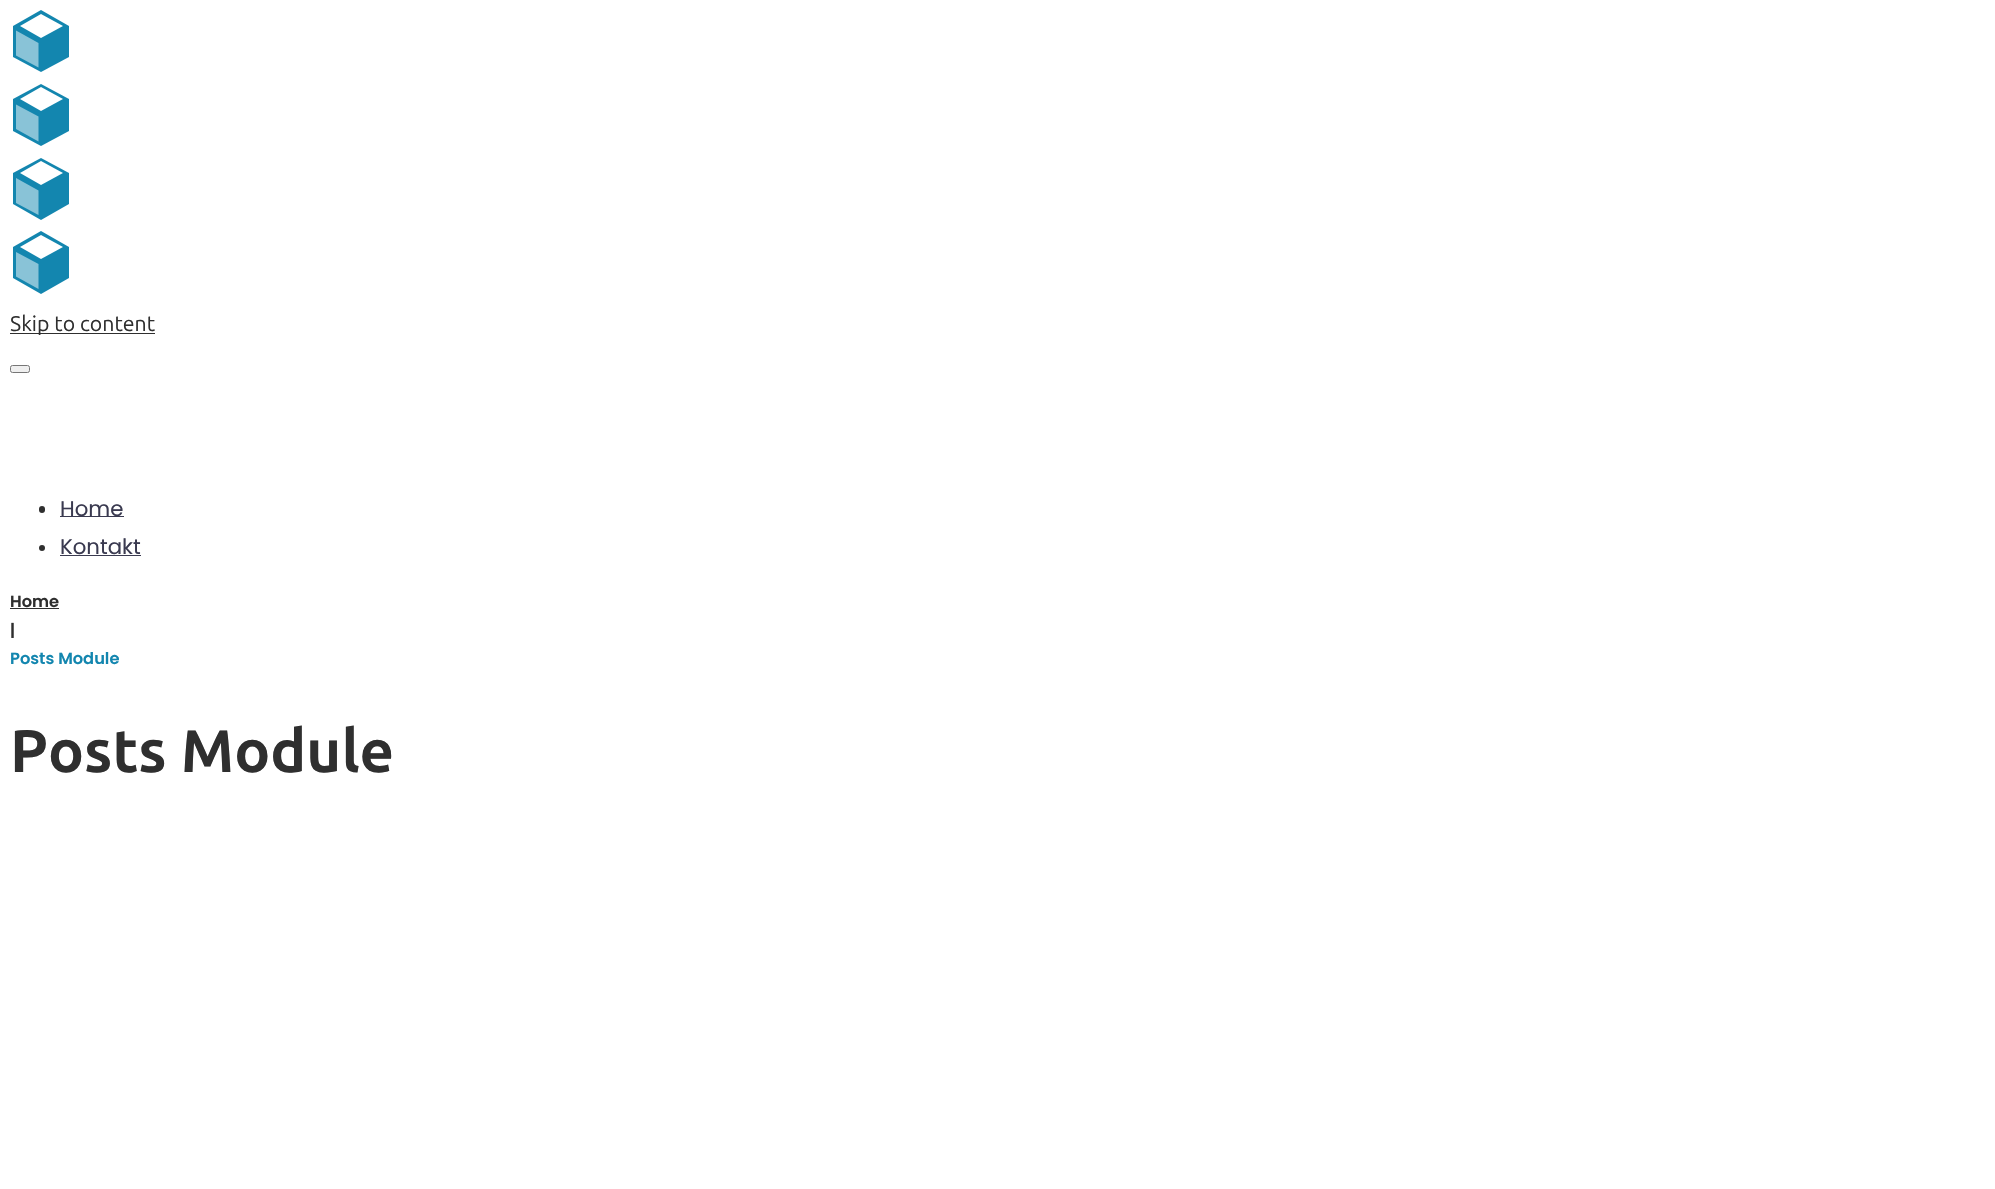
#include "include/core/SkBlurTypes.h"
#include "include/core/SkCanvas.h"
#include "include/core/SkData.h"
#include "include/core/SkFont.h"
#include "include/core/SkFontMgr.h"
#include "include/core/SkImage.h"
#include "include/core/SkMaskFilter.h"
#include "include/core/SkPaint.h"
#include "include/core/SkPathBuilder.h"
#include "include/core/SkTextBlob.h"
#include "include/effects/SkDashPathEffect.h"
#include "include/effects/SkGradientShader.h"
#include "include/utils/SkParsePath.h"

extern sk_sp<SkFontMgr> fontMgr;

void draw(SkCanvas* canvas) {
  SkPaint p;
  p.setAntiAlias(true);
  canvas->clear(SK_ColorWHITE);
  p.setColor(SkColorSetRGB(19, 134, 175));
  canvas->drawPath(SkPathBuilder().moveTo(69, 26).lineTo(41, 10).lineTo(13, 26).lineTo(13, 57).lineTo(41, 72).lineTo(69, 57).close().detach(), p);
  p.setColor(SK_ColorWHITE);
  canvas->drawPath(SkPathBuilder().moveTo(20, 26).lineTo(41, 14).lineTo(63, 26).lineTo(41, 38).lineTo(20, 26).detach(), p);
  p.setColor(SkColorSetRGB(137, 195, 215));
  canvas->drawPath(SkPathBuilder().moveTo(16, 30.5f).lineTo(38.5f, 43).lineTo(38.5f, 67.5f).lineTo(16, 55.5f).detach(), p);
  p.setColor(SkColorSetRGB(19, 134, 175));
  canvas->drawPath(SkPathBuilder().moveTo(69, 99).lineTo(41, 84).lineTo(13, 99).lineTo(13, 131).lineTo(41, 146).lineTo(69, 131).close().detach(), p);
  p.setColor(SK_ColorWHITE);
  canvas->drawPath(SkPathBuilder().moveTo(20, 99).lineTo(41, 87).lineTo(63, 99).lineTo(41, 111).lineTo(20, 99).detach(), p);
  p.setColor(SkColorSetRGB(137, 195, 215));
  canvas->drawPath(SkPathBuilder().moveTo(16, 104.5f).lineTo(38.5f, 116.5f).lineTo(38.5f, 141.5f).lineTo(16, 129).detach(), p);
  p.setColor(SkColorSetRGB(19, 134, 175));
  canvas->drawPath(SkPathBuilder().moveTo(69, 173).lineTo(41, 158).lineTo(13, 173).lineTo(13, 204).lineTo(41, 220).lineTo(69, 204).close().detach(), p);
  p.setColor(SK_ColorWHITE);
  canvas->drawPath(SkPathBuilder().moveTo(20, 173).lineTo(41, 161).lineTo(63, 173).lineTo(41, 185).lineTo(20, 173).detach(), p);
  p.setColor(SkColorSetRGB(137, 195, 215));
  canvas->drawPath(SkPathBuilder().moveTo(16, 178).lineTo(38.5f, 190.5f).lineTo(38.5f, 215).lineTo(16, 203).detach(), p);
  p.setColor(SkColorSetRGB(19, 134, 175));
  canvas->drawPath(SkPathBuilder().moveTo(69, 247).lineTo(41, 231).lineTo(13, 247).lineTo(13, 278).lineTo(41, 294).lineTo(69, 278).close().detach(), p);
  p.setColor(SK_ColorWHITE);
  canvas->drawPath(SkPathBuilder().moveTo(20, 247).lineTo(41, 235).lineTo(63, 247).lineTo(41, 259).lineTo(20, 247).detach(), p);
  p.setColor(SkColorSetRGB(137, 195, 215));
  canvas->drawPath(SkPathBuilder().moveTo(16, 252).lineTo(38.5f, 264).lineTo(38.5f, 289).lineTo(16, 276.5f).detach(), p);
  p.setColor(SkColorSetRGB(47, 47, 47));
  canvas->drawRect(SkRect::MakeLTRB(10, 333, 155, 334), p);
  p.setColor(SkColorSetRGB(239, 239, 239));
  canvas->drawRoundRect(SkRect::MakeLTRB(10.5f, 365.5f, 29.5f, 372.5f), 2, 2, p);
  p.setStyle(SkPaint::kStroke_Style);
  p.setStrokeWidth(1);
  p.setColor(SkColorSetRGB(118, 118, 118));
  canvas->drawRoundRect(SkRect::MakeLTRB(10.5f, 365.5f, 29.5f, 372.5f), 2, 2, p);
  p.setStyle(SkPaint::kFill_Style);
  p.setColor(SkColorSetRGB(47, 47, 47));
  canvas->drawRoundRect(SkRect::MakeLTRB(39, 506, 45, 513), 3, 3, p);
  p.setColor(SkColorSetRGB(58, 58, 80));
  canvas->drawRect(SkRect::MakeLTRB(60, 516, 124, 517), p);
  p.setColor(SkColorSetRGB(47, 47, 47));
  canvas->drawCircle(42, 548, 3, p);
  p.setColor(SkColorSetRGB(58, 58, 80));
  canvas->drawRect(SkRect::MakeLTRB(60, 555, 141, 556), p);
  p.setColor(SkColorSetRGB(47, 47, 47));
  canvas->drawRect(SkRect::MakeLTRB(10, 608, 59, 609), p);
  SkFont font1(fontMgr->matchFamilyStyle("Ubuntu", SkFontStyle::Normal()), 21.25f);
  font1.setSubpixel(true);
  canvas->drawString("Skip to content", 10, 331, font1, p);
  SkFont font2(fontMgr->matchFamilyStyle("Poppins", SkFontStyle::Normal()), 21.25f);
  font2.setSubpixel(true);
  p.setColor(SkColorSetRGB(58, 58, 80));
  canvas->drawString("Home", 60, 516, font2, p);
  canvas->drawString("Kontakt", 60, 554, font2, p);
  SkFont font3(fontMgr->matchFamilyStyle("Poppins", SkFontStyle(600, SkFontStyle::kNormal_Width, SkFontStyle::kUpright_Slant)), 16.25f);
  font3.setSubpixel(true);
  p.setColor(SkColorSetRGB(47, 47, 47));
  canvas->drawString("Home", 10, 607, font3, p);
  canvas->drawString("|", 10, 636, font3, p);
  p.setColor(SkColorSetRGB(19, 134, 175));
  canvas->drawString("Posts Module", 10, 664, font3, p);
  SkFont font4(fontMgr->matchFamilyStyle("Ubuntu", SkFontStyle::Bold()), 60);
  font4.setSubpixel(true);
  p.setColor(SkColorSetRGB(47, 47, 47));
  canvas->drawString("Posts Module", 10, 772, font4, p);
}
